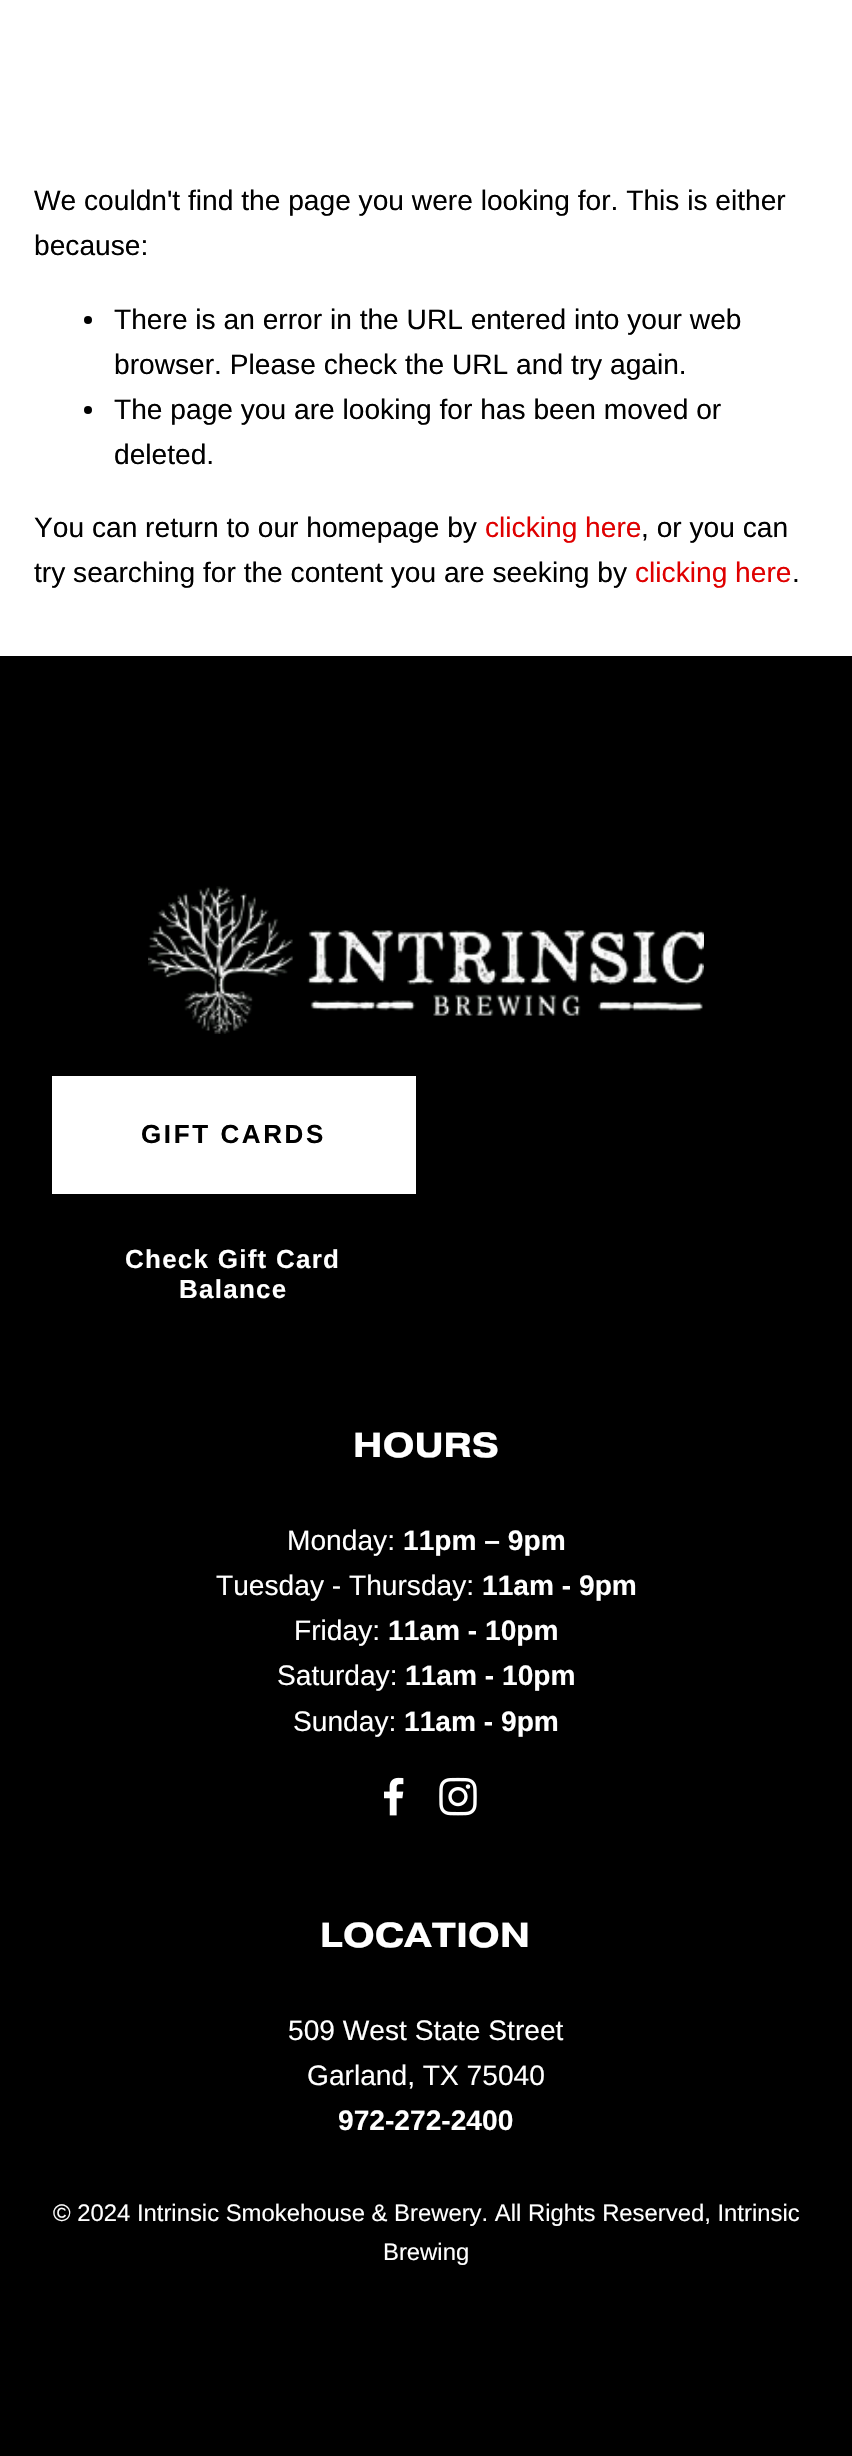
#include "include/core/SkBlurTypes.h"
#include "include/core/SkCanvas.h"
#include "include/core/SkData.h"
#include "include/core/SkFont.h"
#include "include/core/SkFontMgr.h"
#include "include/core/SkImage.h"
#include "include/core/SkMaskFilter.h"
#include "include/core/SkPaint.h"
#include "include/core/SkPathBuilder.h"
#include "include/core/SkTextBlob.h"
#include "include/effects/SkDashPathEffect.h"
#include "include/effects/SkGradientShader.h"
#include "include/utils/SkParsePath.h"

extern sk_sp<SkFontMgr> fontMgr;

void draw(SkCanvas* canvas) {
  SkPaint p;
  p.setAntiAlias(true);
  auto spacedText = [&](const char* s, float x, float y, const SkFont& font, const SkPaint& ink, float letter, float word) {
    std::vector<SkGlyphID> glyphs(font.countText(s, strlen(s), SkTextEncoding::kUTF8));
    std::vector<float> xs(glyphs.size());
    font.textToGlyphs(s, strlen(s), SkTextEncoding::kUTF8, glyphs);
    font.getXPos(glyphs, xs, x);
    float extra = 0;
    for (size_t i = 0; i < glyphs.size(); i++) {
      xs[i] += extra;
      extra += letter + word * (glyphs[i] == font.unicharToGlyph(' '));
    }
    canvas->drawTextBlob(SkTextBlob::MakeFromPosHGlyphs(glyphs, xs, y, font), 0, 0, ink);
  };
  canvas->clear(SK_ColorWHITE);
  p.setColor(SK_ColorBLACK);
  canvas->drawCircle(88, 320, 4, p);
  canvas->drawCircle(88, 410, 4, p);
  canvas->drawRect(SkRect::MakeLTRB(0, 656, 852, 2456), p);
  canvas->drawImageRect(SkImages::DeferredFromEncodedData(SkData::MakeFromFileName("images/1.png")), SkRect::MakeLTRB(148, 886, 704, 1034), SkSamplingOptions());
  p.setColor(SK_ColorWHITE);
  canvas->drawRect(SkRect::MakeLTRB(52, 1076, 416, 1194), p);
  canvas->drawImageRect(SkImages::DeferredFromEncodedData(SkData::MakeFromFileName("images/2.png")), SkRect::MakeLTRB(384, 1777, 404, 1816), SkSamplingOptions());
  canvas->drawImageRect(SkImages::DeferredFromEncodedData(SkData::MakeFromFileName("images/3.png")), SkRect::MakeLTRB(439, 1777, 477, 1816), SkSamplingOptions());
  SkFont font1(fontMgr->matchFamilyStyle("Liberation Sans", SkFontStyle::Normal()), 28.15f);
  font1.setSubpixel(true);
  p.setColor(SK_ColorBLACK);
  canvas->drawString("We couldn't find the page you were looking for. This is either", 34, 210, font1, p);
  canvas->drawString("because:", 34, 255, font1, p);
  canvas->drawString("There is an error in the URL entered into your web", 114, 329, font1, p);
  canvas->drawString("browser. Please check the URL and try again.", 114, 374, font1, p);
  canvas->drawString("The page you are looking for has been moved or", 114, 419, font1, p);
  canvas->drawString("deleted.", 114, 464, font1, p);
  canvas->drawString("You can return to our homepage by", 34, 537, font1, p);
  p.setColor(SkColorSetRGB(223, 0, 0));
  canvas->drawString("clicking here", 485, 537, font1, p);
  p.setColor(SK_ColorBLACK);
  canvas->drawString(", or you can", 641, 537, font1, p);
  canvas->drawString("try searching for the content you are seeking by", 34, 582, font1, p);
  p.setColor(SkColorSetRGB(223, 0, 0));
  canvas->drawString("clicking here", 635, 582, font1, p);
  p.setColor(SK_ColorBLACK);
  canvas->drawString(".", 792, 582, font1, p);
  SkFont font2(fontMgr->matchFamilyStyle("Liberation Sans", SkFontStyle::Bold()), 26);
  font2.setSubpixel(true);
  spacedText("GIFT CARDS", 141, 1143, font2, p, 2.6f, 0);
  p.setColor(SK_ColorWHITE);
  spacedText("Check Gift Card", 125, 1268, font2, p, 1.25f, 0);
  spacedText("Balance", 179, 1298, font2, p, 1.25f, 0);
  SkFont font3(fontMgr->matchFamilyStyle("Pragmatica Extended", SkFontStyle::Bold()), 34.5f);
  font3.setSubpixel(true);
  spacedText("HOURS", 353, 1457, font3, p, 0.25f, 0);
  canvas->drawString("Monday:", 287, 1550, font1, p);
  SkFont font4(fontMgr->matchFamilyStyle("Liberation Sans", SkFontStyle::Bold()), 28.15f);
  font4.setSubpixel(true);
  canvas->drawString("11pm – 9pm", 403, 1550, font4, p);
  canvas->drawString("Tuesday - Thursday:", 216, 1595, font1, p);
  canvas->drawString("11am - 9pm", 482, 1595, font4, p);
  canvas->drawString("Friday:", 294, 1640, font1, p);
  canvas->drawString("11am - 10pm", 388, 1640, font4, p);
  canvas->drawString("Saturday:", 277, 1685, font1, p);
  canvas->drawString("11am - 10pm", 405, 1685, font4, p);
  canvas->drawString("Sunday:", 293, 1731, font1, p);
  canvas->drawString("11am - 9pm", 404, 1731, font4, p);
  spacedText("LOCATION", 320, 1947, font3, p, 0.25f, 0);
  canvas->drawString("509 West State Street", 288, 2040, font1, p);
  canvas->drawString("Garland, TX 75040", 307, 2085, font1, p);
  canvas->drawString("972-272-2400", 338, 2130, font4, p);
  SkFont font5(fontMgr->matchFamilyStyle("Liberation Sans", SkFontStyle::Normal()), 23.85f);
  font5.setSubpixel(true);
  canvas->drawString("© 2024 Intrinsic Smokehouse & Brewery. All Rights Reserved, Intrinsic", 53, 2221, font5, p);
  canvas->drawString("Brewing", 383, 2260, font5, p);
}
